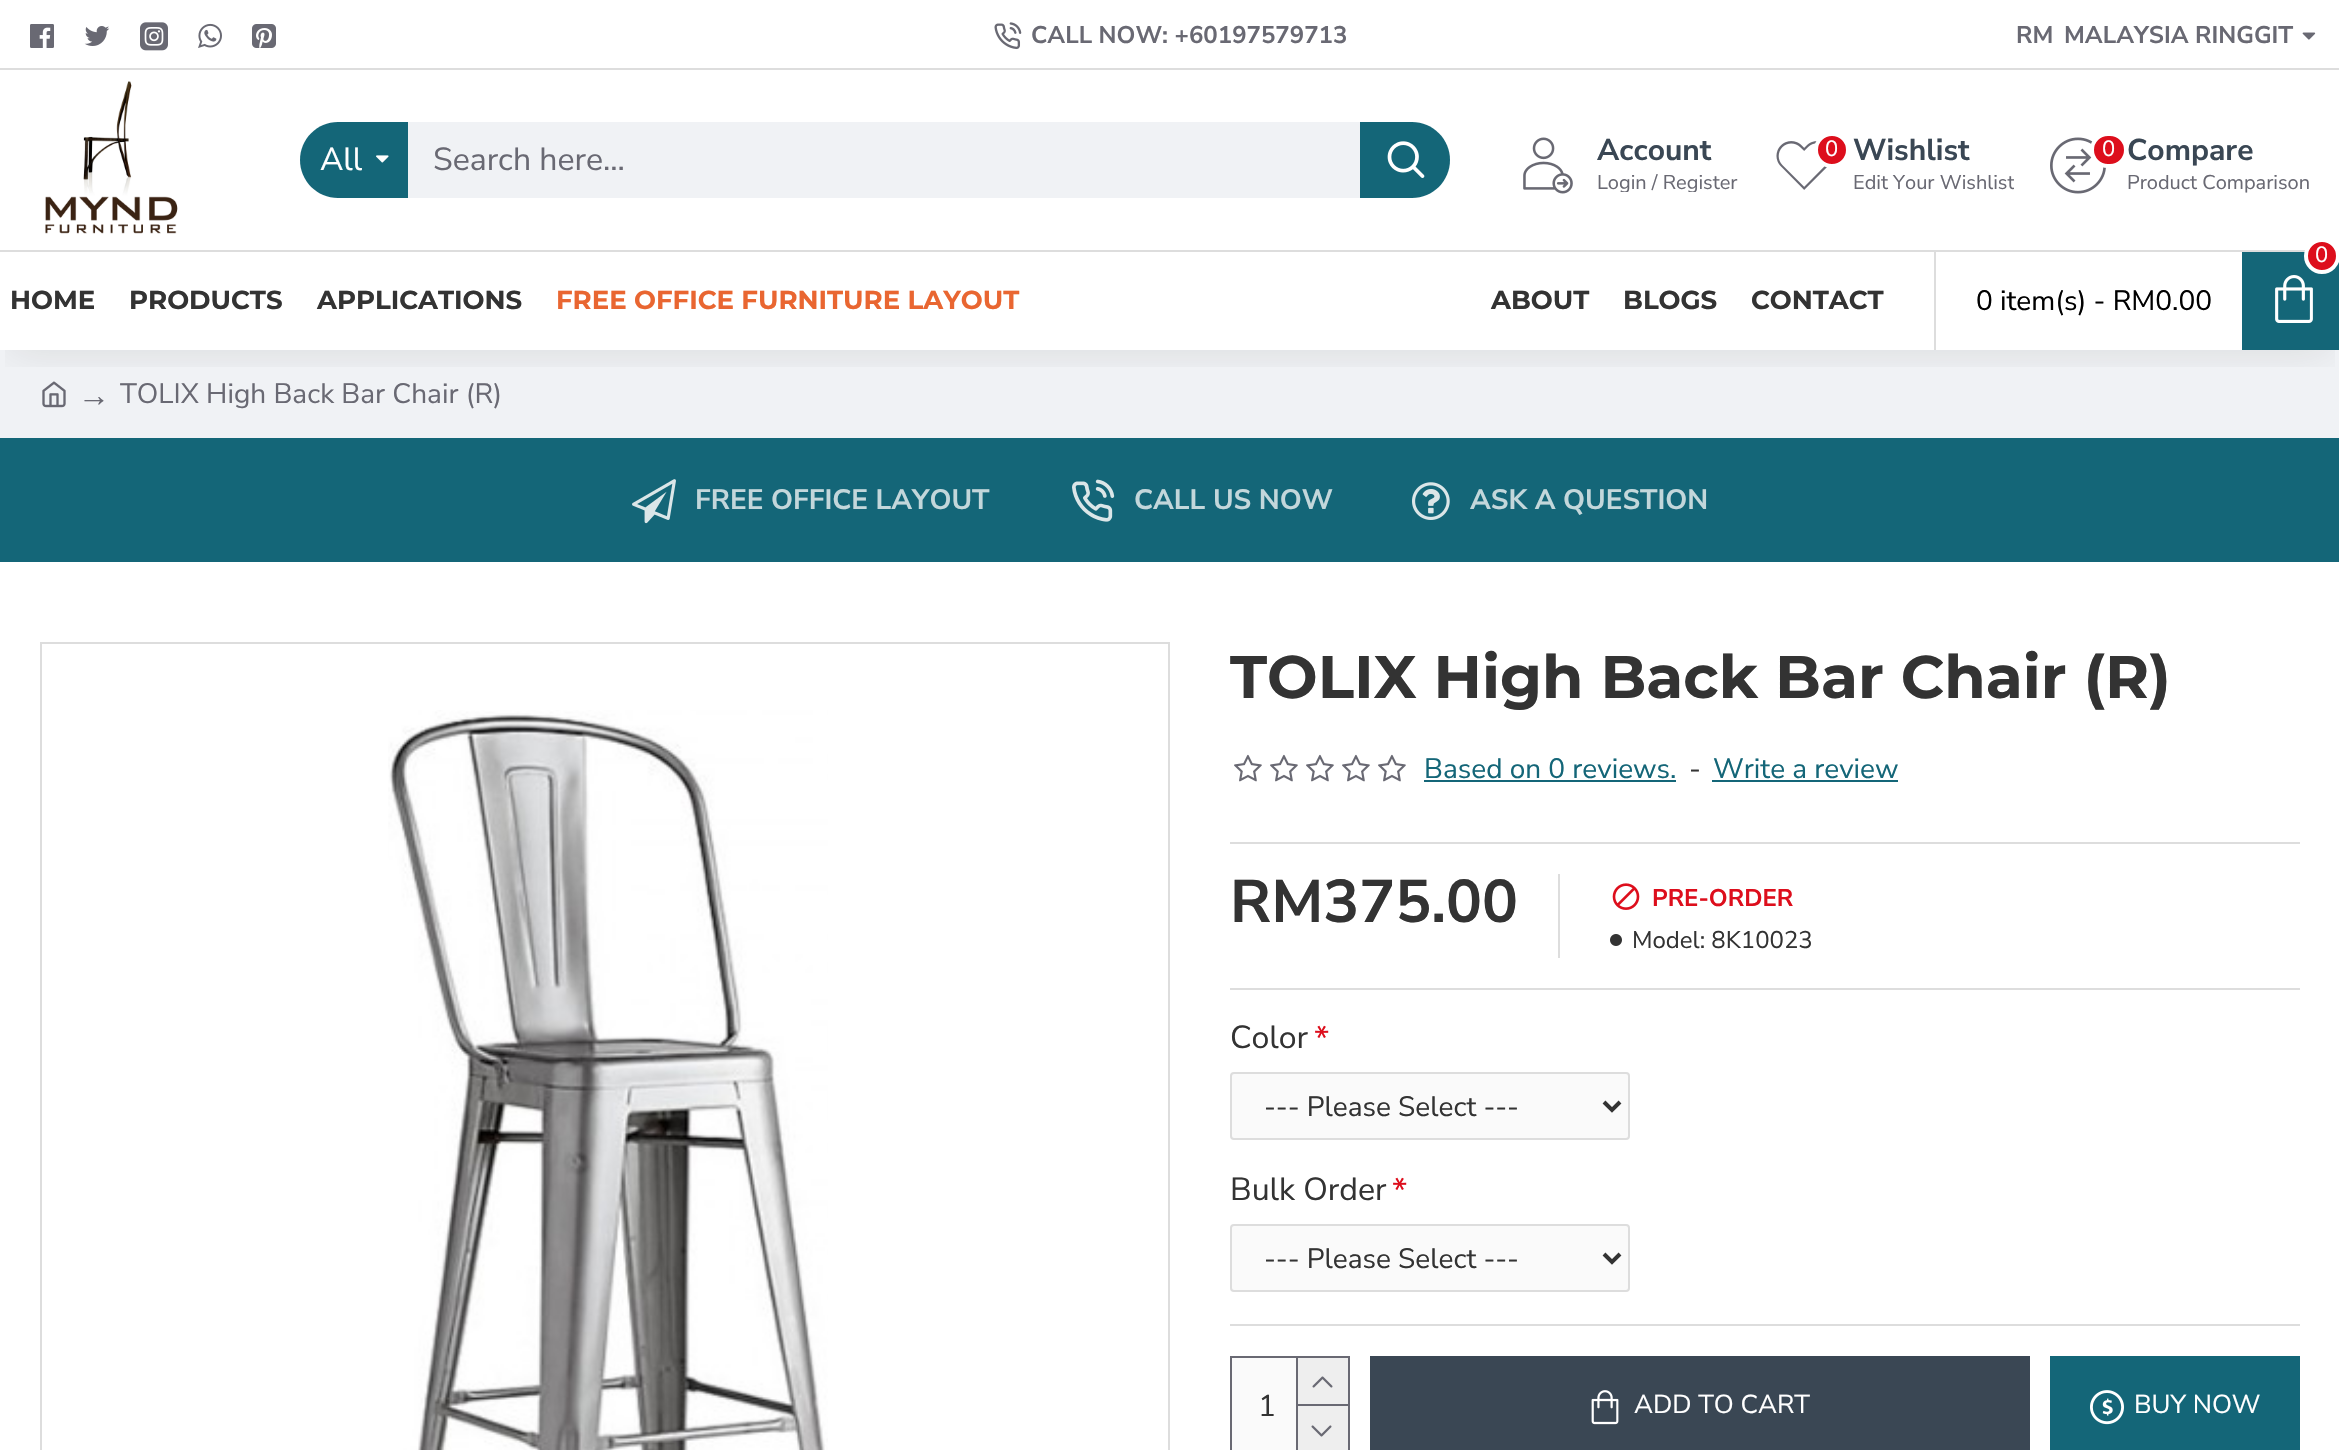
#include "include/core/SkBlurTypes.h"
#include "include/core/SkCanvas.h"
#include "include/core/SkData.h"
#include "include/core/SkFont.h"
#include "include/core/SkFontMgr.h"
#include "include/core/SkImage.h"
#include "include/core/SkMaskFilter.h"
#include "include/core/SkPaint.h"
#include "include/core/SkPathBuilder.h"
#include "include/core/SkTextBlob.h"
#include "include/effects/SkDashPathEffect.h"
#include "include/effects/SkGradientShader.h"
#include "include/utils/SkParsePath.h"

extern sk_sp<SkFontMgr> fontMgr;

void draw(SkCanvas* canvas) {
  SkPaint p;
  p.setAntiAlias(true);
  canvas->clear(SK_ColorWHITE);
  p.setColor(SkColorSetRGB(240, 242, 245));
  canvas->drawRect(SkRect::MakeLTRB(0, 350, 2339, 438), p);
  canvas->drawImageRect(SkImages::DeferredFromEncodedData(SkData::MakeFromFileName("images/15.png")), SkRect::MakeLTRB(42, 381, 66, 408), SkSamplingOptions());
  canvas->save();
  canvas->clipRect(SkRect::MakeLTRB(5, 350, 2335, 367));
  p.setColor(SkColorSetARGB(26, 0, 0, 0));
  p.setMaskFilter(SkMaskFilter::MakeBlur(kNormal_SkBlurStyle, 20));
  canvas->drawRect(SkRect::MakeLTRB(10, 20, 2330, 350), p);
  p.setMaskFilter(nullptr);
  canvas->restore();
  canvas->drawImageRect(SkImages::DeferredFromEncodedData(SkData::MakeFromFileName("images/1.png")), SkRect::MakeLTRB(30, 24, 54, 48), SkSamplingOptions());
  canvas->drawImageRect(SkImages::DeferredFromEncodedData(SkData::MakeFromFileName("images/2.png")), SkRect::MakeLTRB(84, 26, 110, 46), SkSamplingOptions());
  canvas->drawImageRect(SkImages::DeferredFromEncodedData(SkData::MakeFromFileName("images/3.png")), SkRect::MakeLTRB(140, 22, 168, 51), SkSamplingOptions());
  canvas->drawImageRect(SkImages::DeferredFromEncodedData(SkData::MakeFromFileName("images/4.png")), SkRect::MakeLTRB(198, 23, 222, 48), SkSamplingOptions());
  canvas->drawImageRect(SkImages::DeferredFromEncodedData(SkData::MakeFromFileName("images/5.png")), SkRect::MakeLTRB(252, 24, 276, 48), SkSamplingOptions());
  canvas->drawImageRect(SkImages::DeferredFromEncodedData(SkData::MakeFromFileName("images/6.png")), SkRect::MakeLTRB(994, 22, 1022, 50), SkSamplingOptions());
  canvas->drawImageRect(SkImages::DeferredFromEncodedData(SkData::MakeFromFileName("images/7.png")), SkRect::MakeLTRB(2302, 32, 2316, 40), SkSamplingOptions());
  canvas->drawImageRect(SkImages::DeferredFromEncodedData(SkData::MakeFromFileName("images/8.png")), SkRect::MakeLTRB(45, 81, 178, 234), SkSamplingOptions());
  p.setColor(SkColorSetRGB(20, 102, 120));
  canvas->drawPath(SkPathBuilder().moveTo(338, 122).lineTo(408, 122).lineTo(408, 198).lineTo(338, 198).cubicTo(317, 198, 300, 181, 300, 160).cubicTo(300, 139, 317, 122, 338, 122).close().detach(), p);
  canvas->drawImageRect(SkImages::DeferredFromEncodedData(SkData::MakeFromFileName("images/9.png")), SkRect::MakeLTRB(376, 155, 389, 163), SkSamplingOptions());
  p.setColor(SkColorSetRGB(240, 242, 245));
  canvas->drawRect(SkRect::MakeLTRB(408, 122, 1360, 198), p);
  p.setColor(SkColorSetRGB(20, 102, 120));
  canvas->drawPath(SkPathBuilder().moveTo(1360, 122).lineTo(1412, 122).cubicTo(1433, 122, 1450, 139, 1450, 160).cubicTo(1450, 181, 1433, 198, 1412, 198).lineTo(1360, 198).close().detach(), p);
  canvas->drawImageRect(SkImages::DeferredFromEncodedData(SkData::MakeFromFileName("images/10.png")), SkRect::MakeLTRB(1387, 141, 1425, 178), SkSamplingOptions());
  canvas->drawImageRect(SkImages::DeferredFromEncodedData(SkData::MakeFromFileName("images/11.png")), SkRect::MakeLTRB(1523, 137, 1573, 194), SkSamplingOptions());
  canvas->drawImageRect(SkImages::DeferredFromEncodedData(SkData::MakeFromFileName("images/12.png")), SkRect::MakeLTRB(1776, 141, 1827, 190), SkSamplingOptions());
  p.setColor(SkColorSetRGB(221, 14, 28));
  canvas->drawCircle(1832, 150, 16, p);
  p.setStyle(SkPaint::kStroke_Style);
  p.setStrokeWidth(4);
  p.setColor(SK_ColorWHITE);
  canvas->drawCircle(1832, 150, 16, p);
  canvas->drawImageRect(SkImages::DeferredFromEncodedData(SkData::MakeFromFileName("images/13.png")), SkRect::MakeLTRB(2050, 137, 2106, 194), SkSamplingOptions());
  p.setStyle(SkPaint::kFill_Style);
  p.setColor(SkColorSetRGB(221, 14, 28));
  canvas->drawRoundRect(SkRect::MakeLTRB(2092, 134, 2126, 166), 16, 16, p);
  p.setStyle(SkPaint::kStroke_Style);
  p.setColor(SK_ColorWHITE);
  canvas->drawRoundRect(SkRect::MakeLTRB(2092, 134, 2126, 166), 16, 16, p);
  p.setStyle(SkPaint::kFill_Style);
  p.setColor(SkColorSetRGB(221, 221, 221));
  canvas->drawRect(SkRect::MakeLTRB(0, 250, 2305, 252), p);
  canvas->drawRect(SkRect::MakeLTRB(1934, 250, 1936, 350), p);
  p.setColor(SkColorSetRGB(20, 102, 120));
  canvas->drawRect(SkRect::MakeLTRB(2242, 252, 2339, 350), p);
  p.setColor(SkColorSetRGB(221, 14, 28));
  canvas->drawCircle(2322, 256, 16, p);
  p.setStyle(SkPaint::kStroke_Style);
  p.setColor(SK_ColorWHITE);
  canvas->drawCircle(2322, 256, 16, p);
  canvas->drawImageRect(SkImages::DeferredFromEncodedData(SkData::MakeFromFileName("images/14.png")), SkRect::MakeLTRB(2275, 275, 2313, 323), SkSamplingOptions());
  p.setStyle(SkPaint::kFill_Style);
  p.setColor(SkColorSetRGB(221, 221, 221));
  canvas->drawRect(SkRect::MakeLTRB(0, 68, 2339, 70), p);
  p.setColor(SkColorSetRGB(20, 102, 120));
  canvas->drawRect(SkRect::MakeLTRB(0, 438, 2339, 562), p);
  canvas->drawImageRect(SkImages::DeferredFromEncodedData(SkData::MakeFromFileName("images/16.png")), SkRect::MakeLTRB(632, 479, 676, 524), SkSamplingOptions());
  canvas->drawImageRect(SkImages::DeferredFromEncodedData(SkData::MakeFromFileName("images/17.png")), SkRect::MakeLTRB(1072, 479, 1115, 522), SkSamplingOptions());
  canvas->drawImageRect(SkImages::DeferredFromEncodedData(SkData::MakeFromFileName("images/18.png")), SkRect::MakeLTRB(1412, 482, 1450, 520), SkSamplingOptions());
  p.setStyle(SkPaint::kStroke_Style);
  p.setStrokeWidth(2);
  p.setColor(SkColorSetRGB(221, 221, 221));
  canvas->drawRect(SkRect::MakeLTRB(41, 643, 1169, 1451), p);
  canvas->drawImageRect(SkImages::DeferredFromEncodedData(SkData::MakeFromFileName("images/19.png")), SkRect::MakeLTRB(388, 710, 828, 1450), SkSamplingOptions());
  p.setStyle(SkPaint::kFill_Style);
  canvas->drawRect(SkRect::MakeLTRB(1230, 842, 2300, 844), p);
  canvas->drawImageRect(SkImages::DeferredFromEncodedData(SkData::MakeFromFileName("images/20.png")), SkRect::MakeLTRB(1234, 754, 1262, 782), SkSamplingOptions());
  canvas->drawImageRect(SkImages::DeferredFromEncodedData(SkData::MakeFromFileName("images/20.png")), SkRect::MakeLTRB(1270, 754, 1298, 782), SkSamplingOptions());
  canvas->drawImageRect(SkImages::DeferredFromEncodedData(SkData::MakeFromFileName("images/20.png")), SkRect::MakeLTRB(1306, 754, 1334, 782), SkSamplingOptions());
  canvas->drawImageRect(SkImages::DeferredFromEncodedData(SkData::MakeFromFileName("images/20.png")), SkRect::MakeLTRB(1342, 754, 1370, 782), SkSamplingOptions());
  canvas->drawImageRect(SkImages::DeferredFromEncodedData(SkData::MakeFromFileName("images/20.png")), SkRect::MakeLTRB(1378, 754, 1406, 782), SkSamplingOptions());
  p.setColor(SkColorSetRGB(20, 102, 120));
  canvas->drawRect(SkRect::MakeLTRB(1424, 780, 1676, 782), p);
  canvas->drawRect(SkRect::MakeLTRB(1712, 780, 1898, 782), p);
  p.setColor(SkColorSetRGB(221, 221, 221));
  canvas->drawRect(SkRect::MakeLTRB(1558, 874, 1560, 958), p);
  canvas->drawImageRect(SkImages::DeferredFromEncodedData(SkData::MakeFromFileName("images/21.png")), SkRect::MakeLTRB(1612, 883, 1640, 910), SkSamplingOptions());
  canvas->drawImageRect(SkImages::DeferredFromEncodedData(SkData::MakeFromFileName("images/22.png")), SkRect::MakeLTRB(1610, 934, 1622, 946), SkSamplingOptions());
  canvas->drawRect(SkRect::MakeLTRB(1230, 988, 2300, 990), p);
  canvas->drawRect(SkRect::MakeLTRB(1230, 1324, 2300, 1326), p);
  p.setColor(SkColorSetRGB(250, 250, 250));
  canvas->drawRoundRect(SkRect::MakeLTRB(1231, 1073, 1629, 1139), 3, 3, p);
  p.setStyle(SkPaint::kStroke_Style);
  p.setColor(SkColorSetRGB(221, 221, 221));
  canvas->drawRoundRect(SkRect::MakeLTRB(1231, 1073, 1629, 1139), 3, 3, p);
  p.setStrokeWidth(4);
  p.setColor(SkColorSetRGB(51, 51, 51));
  canvas->drawPath(SkPathBuilder().moveTo(1604, 1102).lineTo(1612, 1110).lineTo(1620, 1102).detach(), p);
  p.setStyle(SkPaint::kFill_Style);
  p.setColor(SkColorSetRGB(250, 250, 250));
  canvas->drawRoundRect(SkRect::MakeLTRB(1231, 1225, 1629, 1291), 3, 3, p);
  p.setStyle(SkPaint::kStroke_Style);
  p.setStrokeWidth(2);
  p.setColor(SkColorSetRGB(221, 221, 221));
  canvas->drawRoundRect(SkRect::MakeLTRB(1231, 1225, 1629, 1291), 3, 3, p);
  p.setStrokeWidth(4);
  p.setColor(SkColorSetRGB(51, 51, 51));
  canvas->drawPath(SkPathBuilder().moveTo(1604, 1254).lineTo(1612, 1262).lineTo(1620, 1254).detach(), p);
  p.setStrokeWidth(2);
  p.setColor(SkColorSetRGB(105, 105, 115));
  canvas->drawRect(SkRect::MakeLTRB(1231, 1357, 1349, 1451), p);
  p.setStyle(SkPaint::kFill_Style);
  p.setColor(SkColorSetRGB(250, 250, 250));
  canvas->drawRect(SkRect::MakeLTRB(1232, 1358, 1296, 1450), p);
  p.setColor(SkColorSetRGB(105, 105, 115));
  canvas->drawRect(SkRect::MakeLTRB(1296, 1358, 1298, 1450), p);
  p.setColor(SkColorSetRGB(238, 238, 238));
  canvas->drawRect(SkRect::MakeLTRB(1298, 1358, 1348, 1404), p);
  p.setColor(SkColorSetRGB(105, 105, 115));
  canvas->drawRect(SkRect::MakeLTRB(1298, 1404, 1348, 1406), p);
  canvas->drawImageRect(SkImages::DeferredFromEncodedData(SkData::MakeFromFileName("images/23.png")), SkRect::MakeLTRB(1312, 1376, 1333, 1388), SkSamplingOptions());
  p.setColor(SkColorSetRGB(238, 238, 238));
  canvas->drawRect(SkRect::MakeLTRB(1298, 1406, 1348, 1450), p);
  canvas->drawImageRect(SkImages::DeferredFromEncodedData(SkData::MakeFromFileName("images/24.png")), SkRect::MakeLTRB(1311, 1425, 1332, 1437), SkSamplingOptions());
  p.setColor(SkColorSetRGB(58, 71, 84));
  canvas->drawRect(SkRect::MakeLTRB(1370, 1356, 2030, 1450), p);
  canvas->drawImageRect(SkImages::DeferredFromEncodedData(SkData::MakeFromFileName("images/25.png")), SkRect::MakeLTRB(1591, 1390, 1619, 1425), SkSamplingOptions());
  p.setColor(SkColorSetRGB(20, 102, 120));
  canvas->drawRect(SkRect::MakeLTRB(2050, 1356, 2300, 1450), p);
  canvas->drawImageRect(SkImages::DeferredFromEncodedData(SkData::MakeFromFileName("images/26.png")), SkRect::MakeLTRB(2090, 1390, 2124, 1425), SkSamplingOptions());
  SkFont font1(fontMgr->matchFamilyStyle("Nunito Sans", SkFontStyle::Bold()), 24);
  font1.setSubpixel(true);
  p.setColor(SkColorSetRGB(105, 105, 115));
  canvas->drawString("CALL NOW: +60197579713", 1031, 43, font1, p);
  canvas->drawString("RM", 2016, 43, font1, p);
  canvas->drawString("MALAYSIA RINGGIT", 2064, 43, font1, p);
  SkFont font2(fontMgr->matchFamilyStyle("Nunito Sans", SkFontStyle::Normal()), 32);
  font2.setSubpixel(true);
  p.setColor(SK_ColorWHITE);
  canvas->drawString("All", 320, 170, font2, p);
  p.setColor(SkColorSetRGB(105, 105, 115));
  canvas->drawString("Search here...", 433, 170, font2, p);
  SkFont font3(fontMgr->matchFamilyStyle("Nunito Sans", SkFontStyle::Bold()), 30);
  font3.setSubpixel(true);
  p.setColor(SkColorSetRGB(58, 71, 84));
  canvas->drawString("Account", 1597, 160, font3, p);
  canvas->save();
  canvas->clipRect(SkRect::MakeLTRB(1596, 128, 1738, 192));
  SkFont font4(fontMgr->matchFamilyStyle("Nunito Sans", SkFontStyle::Normal()), 20);
  font4.setSubpixel(true);
  p.setColor(SkColorSetRGB(105, 105, 115));
  canvas->drawString("Login / Register", 1597, 189, font4, p);
  canvas->restore();
  SkFont font5(fontMgr->matchFamilyStyle("Nunito Sans", SkFontStyle::Normal()), 22);
  font5.setSubpixel(true);
  p.setColor(SK_ColorWHITE);
  canvas->drawString("0", 1825, 156, font5, p);
  p.setColor(SkColorSetRGB(58, 71, 84));
  canvas->drawString("Wishlist", 1853, 160, font3, p);
  canvas->save();
  canvas->clipRect(SkRect::MakeLTRB(1854, 128, 2014, 192));
  p.setColor(SkColorSetRGB(105, 105, 115));
  canvas->drawString("Edit Your Wishlist", 1853, 189, font4, p);
  canvas->restore();
  p.setColor(SK_ColorWHITE);
  canvas->drawString("0", 2102, 156, font5, p);
  p.setColor(SkColorSetRGB(58, 71, 84));
  canvas->drawString("Compare", 2127, 160, font3, p);
  p.setColor(SkColorSetRGB(105, 105, 115));
  canvas->drawString("Product Comparison", 2127, 189, font4, p);
  p.setColor(SK_ColorWHITE);
  canvas->drawString("0", 2315, 262, font5, p);
  SkFont font6(fontMgr->matchFamilyStyle("Nunito Sans", SkFontStyle::Normal()), 28);
  font6.setSubpixel(true);
  p.setColor(SK_ColorBLACK);
  canvas->drawString("0 item(s) - RM0.00", 1976, 310, font6, p);
  SkFont font7(fontMgr->matchFamilyStyle("Montserrat", SkFontStyle::Bold()), 26);
  font7.setSubpixel(true);
  p.setColor(SkColorSetRGB(51, 51, 51));
  canvas->drawString("HOME", 10, 309, font7, p);
  canvas->drawString("PRODUCTS", 129, 309, font7, p);
  canvas->drawString("APPLICATIONS", 317, 309, font7, p);
  p.setColor(SkColorSetRGB(233, 102, 49));
  canvas->drawString("FREE OFFICE FURNITURE LAYOUT", 556, 309, font7, p);
  p.setColor(SkColorSetRGB(51, 51, 51));
  canvas->drawString("ABOUT", 1491, 309, font7, p);
  canvas->drawString("BLOGS", 1623, 309, font7, p);
  canvas->drawString("CONTACT", 1751, 309, font7, p);
  SkFont font8(fontMgr->matchFamilyStyle("Liberation Serif", SkFontStyle::Normal()), 32);
  font8.setSubpixel(true);
  p.setColor(SkColorSetRGB(105, 105, 115));
  canvas->drawString("→", 78, 406, font8, p);
  canvas->drawString("TOLIX High Back Bar Chair (R)", 120, 403, font6, p);
  SkFont font9(fontMgr->matchFamilyStyle("Nunito Sans", SkFontStyle::Bold()), 28);
  font9.setSubpixel(true);
  p.setColor(SkColorSetRGB(195, 215, 219));
  canvas->drawString("FREE OFFICE LAYOUT", 695, 509, font9, p);
  canvas->drawString("CALL US NOW", 1134, 509, font9, p);
  canvas->drawString("ASK A QUESTION", 1470, 509, font9, p);
  SkFont font10(fontMgr->matchFamilyStyle("Montserrat", SkFontStyle::Bold()), 60);
  font10.setSubpixel(true);
  p.setColor(SkColorSetRGB(51, 51, 51));
  canvas->drawString("TOLIX High Back Bar Chair (R)", 1230, 698, font10, p);
  p.setColor(SkColorSetRGB(20, 102, 120));
  canvas->drawString("Based on 0 reviews.", 1424, 778, font6, p);
  p.setColor(SkColorSetRGB(51, 51, 51));
  canvas->drawString("-", 1689, 778, font6, p);
  p.setColor(SkColorSetRGB(20, 102, 120));
  canvas->drawString("Write a review", 1713, 778, font6, p);
  SkFont font11(fontMgr->matchFamilyStyle("Nunito Sans", SkFontStyle::Bold()), 60);
  font11.setSubpixel(true);
  p.setColor(SkColorSetRGB(51, 51, 51));
  canvas->drawString("RM375.00", 1230, 922, font11, p);
  p.setColor(SkColorSetRGB(221, 14, 28));
  canvas->drawString("PRE-ORDER", 1652, 906, font1, p);
  SkFont font12(fontMgr->matchFamilyStyle("Nunito Sans", SkFontStyle::Normal()), 24);
  font12.setSubpixel(true);
  p.setColor(SkColorSetRGB(51, 51, 51));
  canvas->drawString("Model: 8K10023", 1632, 948, font12, p);
  canvas->drawString("Color", 1230, 1048, font2, p);
  SkFont font13(fontMgr->matchFamilyStyle("Nunito Sans", SkFontStyle::Normal()), 34);
  font13.setSubpixel(true);
  p.setColor(SkColorSetRGB(221, 14, 28));
  canvas->drawString("*", 1314, 1050, font13, p);
  p.setColor(SkColorSetRGB(51, 51, 51));
  canvas->drawString("--- Please Select ---", 1264, 1116, font6, p);
  canvas->drawString("Bulk Order", 1230, 1200, font2, p);
  p.setColor(SkColorSetRGB(221, 14, 28));
  canvas->drawString("*", 1392, 1202, font13, p);
  p.setColor(SkColorSetRGB(51, 51, 51));
  canvas->drawString("--- Please Select ---", 1264, 1268, font6, p);
  SkFont font14(fontMgr->matchFamilyStyle("Nunito Sans", SkFontStyle::Normal()), 30);
  font14.setSubpixel(true);
  canvas->drawString("1", 1258, 1416, font14, p);
  SkFont font15(fontMgr->matchFamilyStyle("Nunito Sans", SkFontStyle::Normal()), 26);
  font15.setSubpixel(true);
  p.setColor(SK_ColorWHITE);
  canvas->drawString("ADD TO CART", 1634, 1413, font15, p);
  canvas->drawString("BUY NOW", 2134, 1413, font15, p);
}
